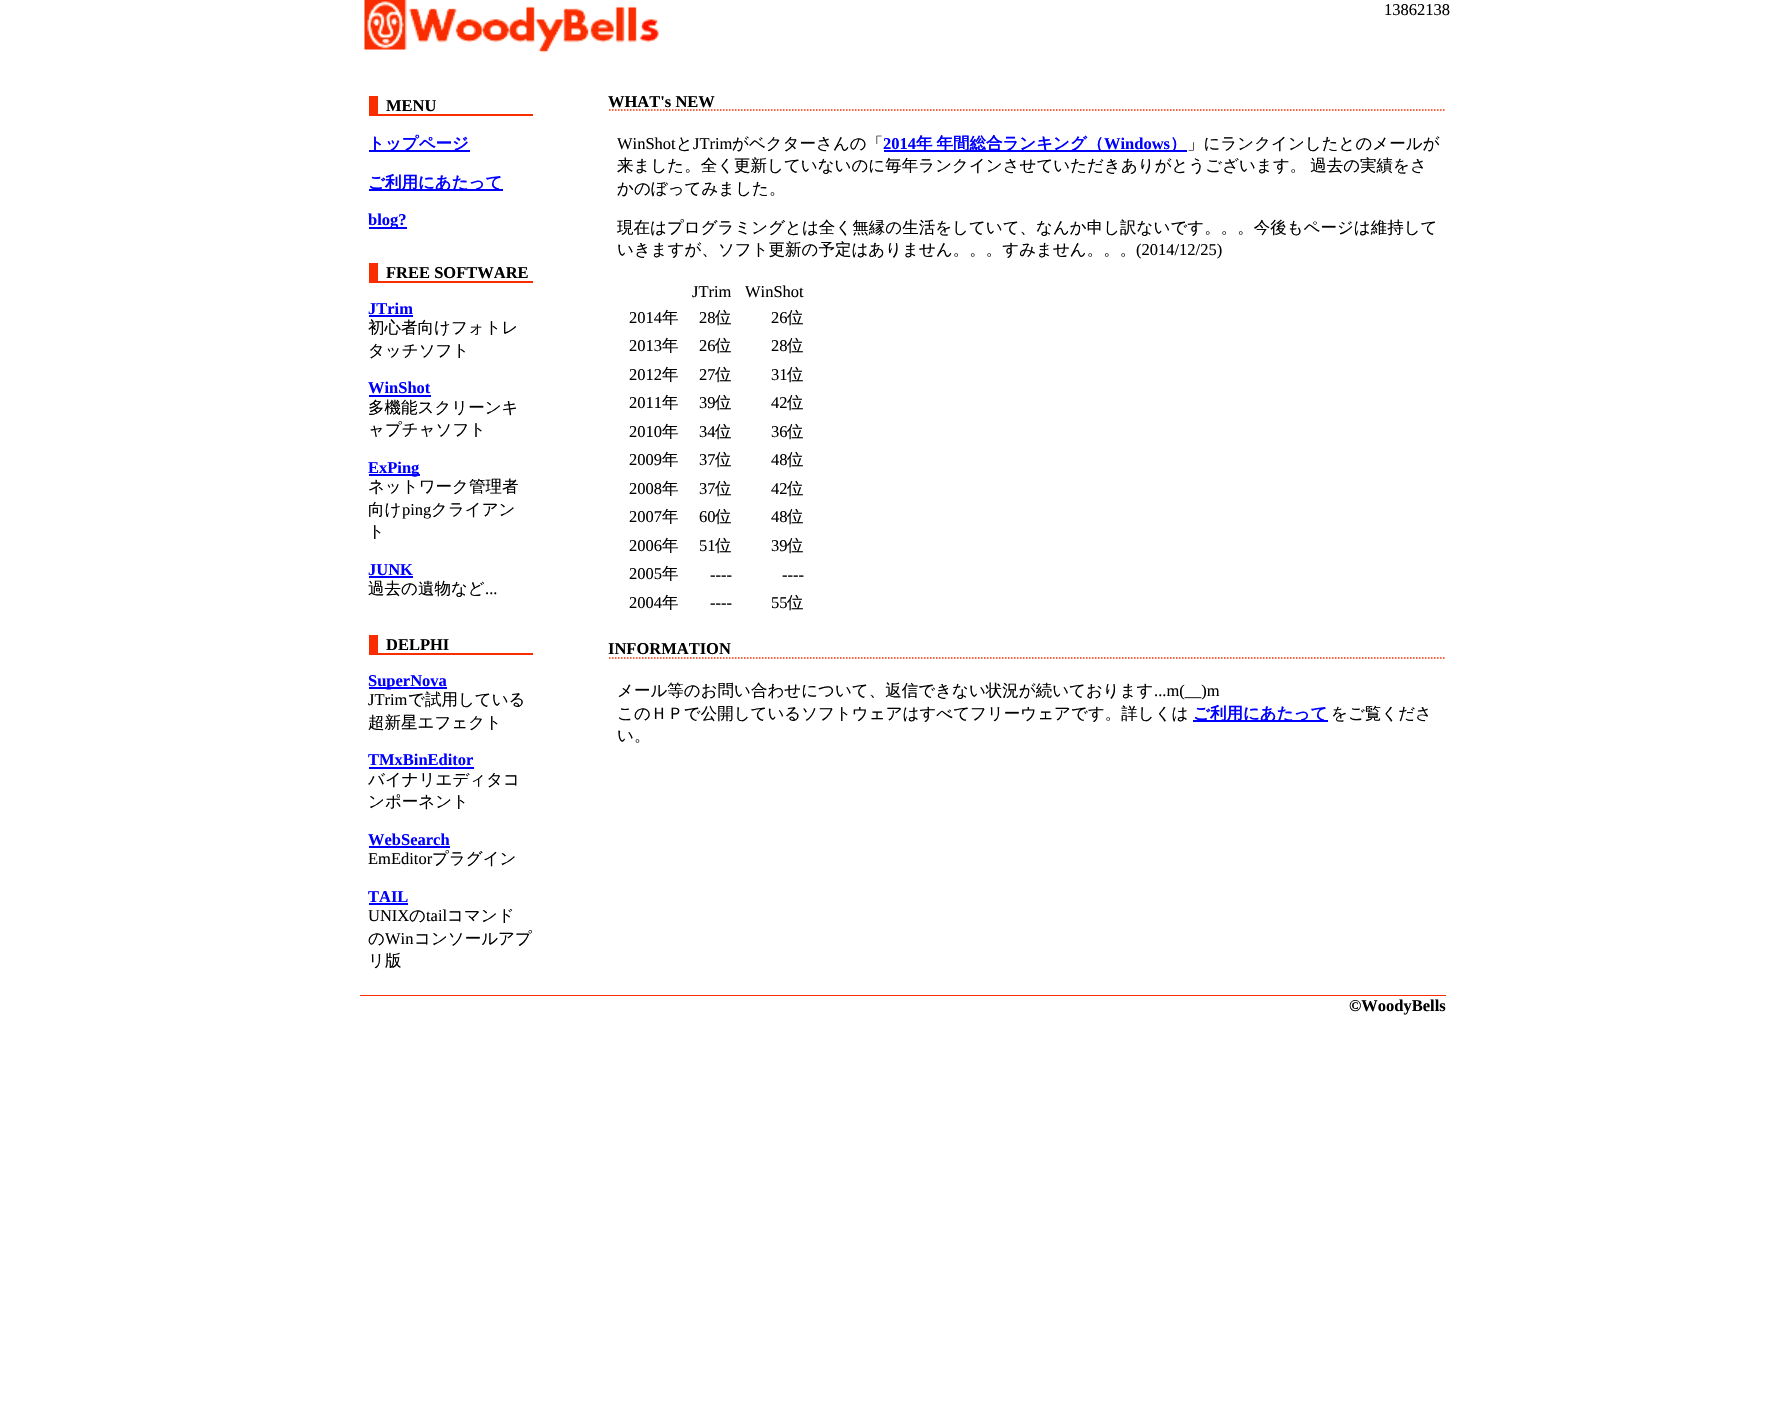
#include "include/core/SkBlurTypes.h"
#include "include/core/SkCanvas.h"
#include "include/core/SkData.h"
#include "include/core/SkFont.h"
#include "include/core/SkFontMgr.h"
#include "include/core/SkImage.h"
#include "include/core/SkMaskFilter.h"
#include "include/core/SkPaint.h"
#include "include/core/SkPathBuilder.h"
#include "include/core/SkTextBlob.h"
#include "include/effects/SkDashPathEffect.h"
#include "include/effects/SkGradientShader.h"
#include "include/utils/SkParsePath.h"

extern sk_sp<SkFontMgr> fontMgr;

void draw(SkCanvas* canvas) {
  SkPaint p;
  p.setAntiAlias(true);
  auto spacedText = [&](const char* s, float x, float y, const SkFont& font, const SkPaint& ink, float letter, float word) {
    std::vector<SkGlyphID> glyphs(font.countText(s, strlen(s), SkTextEncoding::kUTF8));
    std::vector<float> xs(glyphs.size());
    font.textToGlyphs(s, strlen(s), SkTextEncoding::kUTF8, glyphs);
    font.getXPos(glyphs, xs, x);
    float extra = 0;
    for (size_t i = 0; i < glyphs.size(); i++) {
      xs[i] += extra;
      extra += letter + word * (glyphs[i] == font.unicharToGlyph(' '));
    }
    canvas->drawTextBlob(SkTextBlob::MakeFromPosHGlyphs(glyphs, xs, y, font), 0, 0, ink);
  };
  canvas->clear(SK_ColorWHITE);
  canvas->drawImageRect(SkImages::DeferredFromEncodedData(SkData::MakeFromFileName("images/1.png")), SkRect::MakeLTRB(364, 0, 659, 53), SkSamplingOptions());
  p.setColor(SkColorSetRGB(250, 45, 0));
  canvas->drawRect(SkRect::MakeLTRB(378, 114, 533, 116), p);
  canvas->drawRect(SkRect::MakeLTRB(369, 96, 378, 116), p);
  p.setColor(SkColorSetRGB(0, 0, 255));
  canvas->drawRect(SkRect::MakeLTRB(369, 150, 470, 152), p);
  canvas->drawRect(SkRect::MakeLTRB(369, 189, 503, 191), p);
  canvas->drawRect(SkRect::MakeLTRB(369, 227, 407, 229), p);
  p.setColor(SkColorSetRGB(250, 45, 0));
  canvas->drawRect(SkRect::MakeLTRB(369, 281, 533, 283), p);
  canvas->drawRect(SkRect::MakeLTRB(369, 263, 378, 281), p);
  p.setColor(SkColorSetRGB(0, 0, 255));
  canvas->drawRect(SkRect::MakeLTRB(369, 315, 413, 317), p);
  canvas->drawRect(SkRect::MakeLTRB(369, 395, 431, 397), p);
  canvas->drawRect(SkRect::MakeLTRB(369, 474, 420, 476), p);
  canvas->drawRect(SkRect::MakeLTRB(369, 576, 413, 578), p);
  p.setColor(SkColorSetRGB(250, 45, 0));
  canvas->drawRect(SkRect::MakeLTRB(369, 653, 533, 655), p);
  canvas->drawRect(SkRect::MakeLTRB(369, 635, 378, 653), p);
  p.setColor(SkColorSetRGB(0, 0, 255));
  canvas->drawRect(SkRect::MakeLTRB(369, 687, 447, 689), p);
  canvas->drawRect(SkRect::MakeLTRB(369, 767, 474, 769), p);
  canvas->drawRect(SkRect::MakeLTRB(369, 846, 450, 848), p);
  canvas->drawRect(SkRect::MakeLTRB(369, 903, 408, 905), p);
  p.setStyle(SkPaint::kStroke_Style);
  p.setStrokeWidth(1.5f);
  p.setColor(SkColorSetRGB(250, 45, 0));
  p.setPathEffect(SkDashPathEffect::Make({{1.5f, 1.5f}}, 0));
  canvas->drawPath(SkPathBuilder().moveTo(609, 110).lineTo(1446, 110).detach(), p);
  p.setPathEffect(nullptr);
  p.setStyle(SkPaint::kFill_Style);
  p.setColor(SkColorSetRGB(0, 0, 255));
  canvas->drawRect(SkRect::MakeLTRB(884, 150, 1187, 152), p);
  p.setStyle(SkPaint::kStroke_Style);
  p.setColor(SkColorSetRGB(250, 45, 0));
  p.setPathEffect(SkDashPathEffect::Make({{1.5f, 1.5f}}, 0));
  canvas->drawPath(SkPathBuilder().moveTo(609, 658).lineTo(1446, 658).detach(), p);
  p.setPathEffect(nullptr);
  p.setStyle(SkPaint::kFill_Style);
  p.setColor(SkColorSetRGB(0, 0, 255));
  canvas->drawRect(SkRect::MakeLTRB(1193, 720, 1328, 722), p);
  p.setColor(SkColorSetRGB(250, 45, 0));
  canvas->drawRect(SkRect::MakeLTRB(360, 995, 1446, 996), p);
  SkFont font1(fontMgr->matchFamilyStyle("Liberation Serif", SkFontStyle::Normal()), 16.5f);
  font1.setSubpixel(true);
  p.setColor(SK_ColorBLACK);
  canvas->drawString("13862138", 1384, 15, font1, p);
  SkFont font2(fontMgr->matchFamilyStyle("Liberation Serif", SkFontStyle::Bold()), 16.5f);
  font2.setSubpixel(true);
  canvas->drawString("MENU", 386, 111, font2, p);
  SkFont font3(fontMgr->matchFamilyStyle("WenQuanYi Zen Hei", SkFontStyle::Bold()), 16.5f);
  font3.setSubpixel(true);
  p.setColor(SkColorSetRGB(0, 0, 255));
  canvas->drawString("トップページ", 368, 149, font3, p);
  canvas->drawString("ご利用にあたって", 368, 188, font3, p);
  canvas->drawString("blog?", 368, 225, font2, p);
  p.setColor(SK_ColorBLACK);
  canvas->drawString("FREE SOFTWARE", 386, 278, font2, p);
  p.setColor(SkColorSetRGB(0, 0, 255));
  canvas->drawString("JTrim", 368, 314, font2, p);
  SkFont font4(fontMgr->matchFamilyStyle("WenQuanYi Zen Hei", SkFontStyle(500, SkFontStyle::kNormal_Width, SkFontStyle::kUpright_Slant)), 16.5f);
  font4.setSubpixel(true);
  p.setColor(SK_ColorBLACK);
  canvas->drawString("初心者向けフォトレ", 368, 333, font4, p);
  canvas->drawString("タッチソフト", 368, 356, font4, p);
  p.setColor(SkColorSetRGB(0, 0, 255));
  canvas->drawString("WinShot", 368, 393, font2, p);
  p.setColor(SK_ColorBLACK);
  canvas->drawString("多機能スクリーンキ", 368, 413, font4, p);
  canvas->drawString("ャプチャソフト", 368, 435, font4, p);
  p.setColor(SkColorSetRGB(0, 0, 255));
  canvas->drawString("ExPing", 368, 473, font2, p);
  p.setColor(SK_ColorBLACK);
  canvas->drawString("ネットワーク管理者", 368, 492, font4, p);
  canvas->drawString("向け", 368, 515, font4, p);
  canvas->drawString("ping", 402, 515, font1, p);
  canvas->drawString("クライアン", 431, 515, font4, p);
  canvas->drawString("ト", 368, 537, font4, p);
  p.setColor(SkColorSetRGB(0, 0, 255));
  canvas->drawString("JUNK", 368, 575, font2, p);
  p.setColor(SK_ColorBLACK);
  canvas->drawString("過去の遺物など", 368, 594, font4, p);
  canvas->drawString("...", 485, 594, font1, p);
  canvas->drawString("DELPHI", 386, 650, font2, p);
  p.setColor(SkColorSetRGB(0, 0, 255));
  canvas->drawString("SuperNova", 368, 686, font2, p);
  p.setColor(SK_ColorBLACK);
  canvas->drawString("JTrim", 368, 705, font1, p);
  canvas->drawString("で試用している", 408, 705, font4, p);
  canvas->drawString("超新星エフェクト", 368, 728, font4, p);
  p.setColor(SkColorSetRGB(0, 0, 255));
  canvas->drawString("TMxBinEditor", 368, 765, font2, p);
  p.setColor(SK_ColorBLACK);
  canvas->drawString("バイナリエディタコ", 368, 785, font4, p);
  canvas->drawString("ンポーネント", 368, 807, font4, p);
  p.setColor(SkColorSetRGB(0, 0, 255));
  canvas->drawString("WebSearch", 368, 845, font2, p);
  p.setColor(SK_ColorBLACK);
  canvas->drawString("EmEditor", 368, 864, font1, p);
  canvas->drawString("プラグイン", 432, 864, font4, p);
  p.setColor(SkColorSetRGB(0, 0, 255));
  canvas->drawString("TAIL", 368, 902, font2, p);
  p.setColor(SK_ColorBLACK);
  canvas->drawString("UNIX", 368, 921, font1, p);
  canvas->drawString("の", 409, 921, font4, p);
  canvas->drawString("tail", 426, 921, font1, p);
  canvas->drawString("コマンド", 447, 921, font4, p);
  canvas->drawString("の", 368, 944, font4, p);
  canvas->drawString("Win", 385, 944, font1, p);
  canvas->drawString("コンソールアプ", 414, 944, font4, p);
  canvas->drawString("リ版", 368, 966, font4, p);
  canvas->drawString("WHAT's NEW", 608, 107, font2, p);
  canvas->drawString("WinShot", 617, 149, font1, p);
  canvas->drawString("と", 676, 149, font4, p);
  canvas->drawString("JTrim", 693, 149, font1, p);
  canvas->drawString("がベクターさんの「", 732, 149, font4, p);
  p.setColor(SkColorSetRGB(0, 0, 255));
  canvas->drawString("2014", 883, 149, font2, p);
  spacedText("年 年間総合ランキング（", 916, 149, font3, p, 0, -1);
  canvas->drawString("Windows", 1104, 149, font2, p);
  canvas->drawString("）", 1170, 149, font3, p);
  p.setColor(SK_ColorBLACK);
  canvas->drawString("」にランクインしたとのメールが", 1187, 149, font4, p);
  spacedText("来ました。全く更新していないのに毎年ランクインさせていただきありがとうございます。 過去の実績をさ", 617, 171, font4, p, 0, -1);
  canvas->drawString("かのぼってみました。", 617, 194, font4, p);
  canvas->drawString("現在はプログラミングとは全く無縁の生活をしていて、なんか申し訳ないです。。。今後もページは維持して", 617, 233, font4, p);
  canvas->drawString("いきますが、ソフト更新の予定はありません。。。すみません。。。", 617, 255, font4, p);
  canvas->drawString("(2014/12/25)", 1136, 255, font1, p);
  canvas->drawString("JTrim", 692, 297, font1, p);
  canvas->drawString("WinShot", 745, 297, font1, p);
  canvas->drawString("2014", 629, 323, font1, p);
  canvas->drawString("年", 662, 323, font4, p);
  canvas->drawString("28", 699, 323, font1, p);
  canvas->drawString("位", 715, 323, font4, p);
  canvas->drawString("26", 771, 323, font1, p);
  canvas->drawString("位", 787, 323, font4, p);
  canvas->drawString("2013", 629, 351, font1, p);
  canvas->drawString("年", 662, 351, font4, p);
  canvas->drawString("26", 699, 351, font1, p);
  canvas->drawString("位", 715, 351, font4, p);
  canvas->drawString("28", 771, 351, font1, p);
  canvas->drawString("位", 787, 351, font4, p);
  canvas->drawString("2012", 629, 380, font1, p);
  canvas->drawString("年", 662, 380, font4, p);
  canvas->drawString("27", 699, 380, font1, p);
  canvas->drawString("位", 715, 380, font4, p);
  canvas->drawString("31", 771, 380, font1, p);
  canvas->drawString("位", 787, 380, font4, p);
  canvas->drawString("2011", 629, 408, font1, p);
  canvas->drawString("年", 662, 408, font4, p);
  canvas->drawString("39", 699, 408, font1, p);
  canvas->drawString("位", 715, 408, font4, p);
  canvas->drawString("42", 771, 408, font1, p);
  canvas->drawString("位", 787, 408, font4, p);
  canvas->drawString("2010", 629, 437, font1, p);
  canvas->drawString("年", 662, 437, font4, p);
  canvas->drawString("34", 699, 437, font1, p);
  canvas->drawString("位", 715, 437, font4, p);
  canvas->drawString("36", 771, 437, font1, p);
  canvas->drawString("位", 787, 437, font4, p);
  canvas->drawString("2009", 629, 465, font1, p);
  canvas->drawString("年", 662, 465, font4, p);
  canvas->drawString("37", 699, 465, font1, p);
  canvas->drawString("位", 715, 465, font4, p);
  canvas->drawString("48", 771, 465, font1, p);
  canvas->drawString("位", 787, 465, font4, p);
  canvas->drawString("2008", 629, 494, font1, p);
  canvas->drawString("年", 662, 494, font4, p);
  canvas->drawString("37", 699, 494, font1, p);
  canvas->drawString("位", 715, 494, font4, p);
  canvas->drawString("42", 771, 494, font1, p);
  canvas->drawString("位", 787, 494, font4, p);
  canvas->drawString("2007", 629, 522, font1, p);
  canvas->drawString("年", 662, 522, font4, p);
  canvas->drawString("60", 699, 522, font1, p);
  canvas->drawString("位", 715, 522, font4, p);
  canvas->drawString("48", 771, 522, font1, p);
  canvas->drawString("位", 787, 522, font4, p);
  canvas->drawString("2006", 629, 551, font1, p);
  canvas->drawString("年", 662, 551, font4, p);
  canvas->drawString("51", 699, 551, font1, p);
  canvas->drawString("位", 715, 551, font4, p);
  canvas->drawString("39", 771, 551, font1, p);
  canvas->drawString("位", 787, 551, font4, p);
  canvas->drawString("2005", 629, 579, font1, p);
  canvas->drawString("年", 662, 579, font4, p);
  canvas->drawString("----", 710, 580, font1, p);
  canvas->drawString("----", 782, 580, font1, p);
  canvas->drawString("2004", 629, 608, font1, p);
  canvas->drawString("年", 662, 608, font4, p);
  canvas->drawString("----", 710, 608, font1, p);
  canvas->drawString("55", 771, 608, font1, p);
  canvas->drawString("位", 787, 608, font4, p);
  canvas->drawString("INFORMATION", 608, 654, font2, p);
  canvas->drawString("メール等のお問い合わせについて、返信できない状況が続いております", 617, 696, font4, p);
  canvas->drawString("...m(__)m", 1154, 696, font1, p);
  canvas->drawString("このＨＰで公開しているソフトウェアはすべてフリーウェアです。詳しくは", 617, 719, font4, p);
  p.setColor(SkColorSetRGB(0, 0, 255));
  canvas->drawString("ご利用にあたって", 1193, 719, font3, p);
  p.setColor(SK_ColorBLACK);
  canvas->drawString("をご覧くださ", 1331, 719, font4, p);
  canvas->drawString("い。", 617, 741, font4, p);
  canvas->drawString("©WoodyBells", 1349, 1011, font2, p);
}
